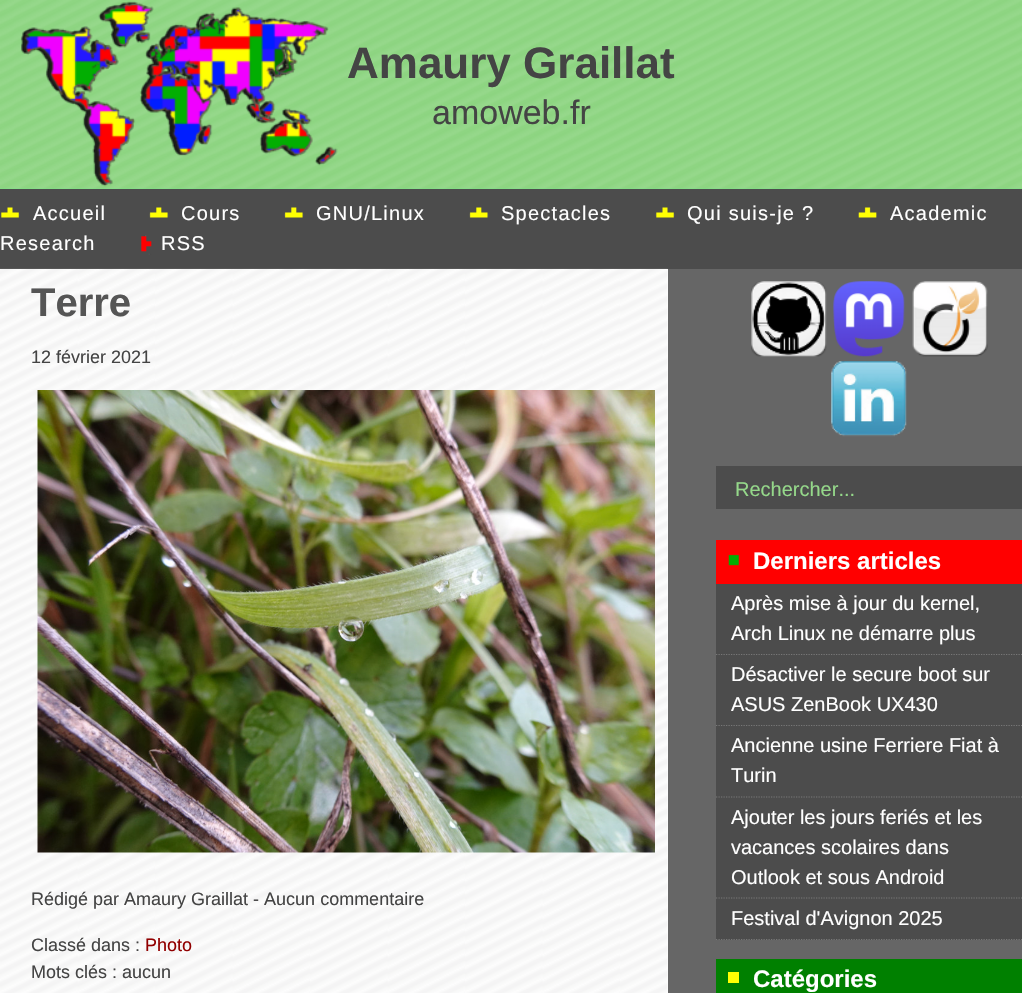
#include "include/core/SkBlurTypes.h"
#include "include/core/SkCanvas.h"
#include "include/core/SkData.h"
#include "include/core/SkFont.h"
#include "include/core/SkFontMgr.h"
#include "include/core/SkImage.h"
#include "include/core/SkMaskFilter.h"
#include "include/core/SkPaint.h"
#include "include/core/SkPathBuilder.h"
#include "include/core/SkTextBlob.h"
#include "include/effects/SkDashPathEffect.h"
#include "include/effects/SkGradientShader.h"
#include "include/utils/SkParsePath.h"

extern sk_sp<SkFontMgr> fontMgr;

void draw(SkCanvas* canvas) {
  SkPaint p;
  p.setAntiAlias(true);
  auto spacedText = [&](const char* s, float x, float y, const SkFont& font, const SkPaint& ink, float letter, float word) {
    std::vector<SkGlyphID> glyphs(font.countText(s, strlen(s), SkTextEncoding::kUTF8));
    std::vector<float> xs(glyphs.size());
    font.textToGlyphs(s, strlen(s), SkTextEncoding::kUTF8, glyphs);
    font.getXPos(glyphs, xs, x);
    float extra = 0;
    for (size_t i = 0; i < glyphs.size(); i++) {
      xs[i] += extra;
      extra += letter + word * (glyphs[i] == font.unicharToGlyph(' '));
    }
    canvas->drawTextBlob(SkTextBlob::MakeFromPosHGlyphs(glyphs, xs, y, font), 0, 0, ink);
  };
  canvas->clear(SkColorSetRGB(76, 76, 76));
  p.setColor(SkColorSetRGB(118, 227, 135));
  canvas->drawRect(SkRect::MakeLTRB(0, 188, 1022, 189), p);
  canvas->drawImageRect(SkImages::DeferredFromEncodedData(SkData::MakeFromFileName("images/1.png")), SkRect::MakeLTRB(0, 0, 1022, 189), SkSamplingOptions());
  canvas->drawImageRect(SkImages::DeferredFromEncodedData(SkData::MakeFromFileName("images/2.png")), SkRect::MakeLTRB(0, 207, 20, 218), SkSamplingOptions());
  canvas->drawImageRect(SkImages::DeferredFromEncodedData(SkData::MakeFromFileName("images/3.png")), SkRect::MakeLTRB(149, 207, 169, 218), SkSamplingOptions());
  canvas->drawImageRect(SkImages::DeferredFromEncodedData(SkData::MakeFromFileName("images/3.png")), SkRect::MakeLTRB(284, 207, 304, 218), SkSamplingOptions());
  canvas->drawImageRect(SkImages::DeferredFromEncodedData(SkData::MakeFromFileName("images/4.png")), SkRect::MakeLTRB(469, 207, 489, 218), SkSamplingOptions());
  canvas->drawImageRect(SkImages::DeferredFromEncodedData(SkData::MakeFromFileName("images/2.png")), SkRect::MakeLTRB(655, 207, 675, 218), SkSamplingOptions());
  canvas->drawImageRect(SkImages::DeferredFromEncodedData(SkData::MakeFromFileName("images/5.png")), SkRect::MakeLTRB(858, 207, 877, 218), SkSamplingOptions());
  canvas->drawImageRect(SkImages::DeferredFromEncodedData(SkData::MakeFromFileName("images/6.png")), SkRect::MakeLTRB(141, 235, 152, 255), SkSamplingOptions());
  p.setColor(SkColorSetRGB(102, 102, 102));
  canvas->drawRect(SkRect::MakeLTRB(668, 269, 1022, 993), p);
  p.setColor(SK_ColorWHITE);
  canvas->drawRect(SkRect::MakeLTRB(667, 269, 668, 993), p);
  canvas->drawImageRect(SkImages::DeferredFromEncodedData(SkData::MakeFromFileName("images/7.png")), SkRect::MakeLTRB(0, 268, 668, 993), SkSamplingOptions());
  canvas->drawImageRect(SkImages::DeferredFromEncodedData(SkData::MakeFromFileName("images/8.png")), SkRect::MakeLTRB(37, 390, 655, 853), SkSamplingOptions());
  canvas->drawImageRect(SkImages::DeferredFromEncodedData(SkData::MakeFromFileName("images/9.png")), SkRect::MakeLTRB(751, 281, 827, 357), SkSamplingOptions());
  canvas->drawImageRect(SkImages::DeferredFromEncodedData(SkData::MakeFromFileName("images/10.png")), SkRect::MakeLTRB(833, 281, 905, 357), SkSamplingOptions());
  canvas->drawImageRect(SkImages::DeferredFromEncodedData(SkData::MakeFromFileName("images/11.png")), SkRect::MakeLTRB(912, 281, 988, 357), SkSamplingOptions());
  canvas->drawImageRect(SkImages::DeferredFromEncodedData(SkData::MakeFromFileName("images/12.png")), SkRect::MakeLTRB(831, 361, 907, 437), SkSamplingOptions());
  p.setColor(SkColorSetRGB(76, 76, 76));
  canvas->drawRect(SkRect::MakeLTRB(716, 466, 1022, 509), p);
  p.setColor(SkColorSetRGB(255, 0, 0));
  canvas->drawRect(SkRect::MakeLTRB(716, 540, 1022, 584), p);
  canvas->drawImageRect(SkImages::DeferredFromEncodedData(SkData::MakeFromFileName("images/13.png")), SkRect::MakeLTRB(728, 554, 739, 566), SkSamplingOptions());
  p.setColor(SkColorSetRGB(76, 76, 76));
  canvas->drawRect(SkRect::MakeLTRB(716, 584, 1022, 940), p);
  p.setStyle(SkPaint::kStroke_Style);
  p.setStrokeWidth(1.2f);
  p.setColor(SkColorSetRGB(119, 119, 119));
  p.setPathEffect(SkDashPathEffect::Make({{1.25f, 1.25f}}, 0));
  canvas->drawPath(SkPathBuilder().moveTo(716, 654.5f).lineTo(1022.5f, 654.5f).detach(), p);
  p.setPathEffect(nullptr);
  p.setPathEffect(SkDashPathEffect::Make({{1.25f, 1.25f}}, 0));
  canvas->drawPath(SkPathBuilder().moveTo(716, 725.5f).lineTo(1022.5f, 725.5f).detach(), p);
  p.setPathEffect(nullptr);
  p.setPathEffect(SkDashPathEffect::Make({{1.25f, 1.25f}}, 0));
  canvas->drawPath(SkPathBuilder().moveTo(716, 797).lineTo(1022.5f, 797).detach(), p);
  p.setPathEffect(nullptr);
  p.setPathEffect(SkDashPathEffect::Make({{1.25f, 1.25f}}, 0));
  canvas->drawPath(SkPathBuilder().moveTo(716, 898).lineTo(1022.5f, 898).detach(), p);
  p.setPathEffect(nullptr);
  p.setPathEffect(SkDashPathEffect::Make({{1.25f, 1.25f}}, 0));
  canvas->drawPath(SkPathBuilder().moveTo(716, 939.5f).lineTo(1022.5f, 939.5f).detach(), p);
  p.setPathEffect(nullptr);
  p.setStyle(SkPaint::kFill_Style);
  p.setColor(SkColorSetRGB(0, 128, 0));
  canvas->drawRect(SkRect::MakeLTRB(716, 959, 1022, 993), p);
  p.setColor(SkColorSetRGB(255, 255, 3));
  canvas->drawRect(SkRect::MakeLTRB(728, 972, 739, 983), p);
  SkFont font1(fontMgr->matchFamilyStyle("Liberation Sans", SkFontStyle::Bold()), 44);
  font1.setSubpixel(true);
  p.setColor(SkColorSetRGB(68, 68, 68));
  canvas->drawString("Amaury Graillat", 347, 78, font1, p);
  SkFont font2(fontMgr->matchFamilyStyle("Liberation Sans", SkFontStyle::Normal()), 34);
  font2.setSubpixel(true);
  canvas->drawString("amoweb.fr", 432, 124, font2, p);
  SkFont font3(fontMgr->matchFamilyStyle("Liberation Sans", SkFontStyle::Normal()), 20);
  font3.setSubpixel(true);
  p.setColor(SK_ColorWHITE);
  spacedText("Accueil", 33, 220, font3, p, 1.25f, 0);
  spacedText("Cours", 181, 220, font3, p, 1.25f, 0);
  spacedText("GNU/Linux", 316, 220, font3, p, 1.25f, 0);
  spacedText("Spectacles", 501, 220, font3, p, 1.25f, 0);
  spacedText("Qui suis-je ?", 687, 220, font3, p, 1.25f, 0);
  spacedText("Academic", 890, 220, font3, p, 1.25f, 0);
  spacedText("Research", 0, 250, font3, p, 1.25f, 0);
  spacedText("RSS", 161, 250, font3, p, 1.25f, 0);
  SkFont font4(fontMgr->matchFamilyStyle("Liberation Sans", SkFontStyle::Bold()), 40);
  font4.setSubpixel(true);
  p.setColor(SkColorSetRGB(85, 85, 85));
  canvas->drawString("Terre", 31, 316, font4, p);
  SkFont font5(fontMgr->matchFamilyStyle("Liberation Sans", SkFontStyle::Normal()), 18);
  font5.setSubpixel(true);
  p.setColor(SkColorSetRGB(68, 68, 68));
  canvas->drawString("12 février 2021", 31, 363, font5, p);
  canvas->drawString("Rédigé par Amaury Graillat - Aucun commentaire", 31, 905, font5, p);
  canvas->drawString("Classé dans :", 31, 951, font5, p);
  p.setColor(SkColorSetRGB(145, 0, 0));
  canvas->drawString("Photo", 145, 951, font5, p);
  p.setColor(SkColorSetRGB(68, 68, 68));
  canvas->drawString("Mots clés : aucun", 31, 978, font5, p);
  p.setColor(SkColorSetRGB(149, 216, 138));
  canvas->drawString("Rechercher...", 735, 496, font3, p);
  SkFont font6(fontMgr->matchFamilyStyle("Liberation Sans", SkFontStyle::Bold()), 24);
  font6.setSubpixel(true);
  p.setColor(SK_ColorWHITE);
  canvas->drawString("Derniers articles", 753, 569, font6, p);
  canvas->drawString("Après mise à jour du kernel,", 731, 610, font3, p);
  canvas->drawString("Arch Linux ne démarre plus", 731, 640, font3, p);
  canvas->drawString("Désactiver le secure boot sur", 731, 681, font3, p);
  canvas->drawString("ASUS ZenBook UX430", 731, 711, font3, p);
  canvas->drawString("Ancienne usine Ferriere Fiat à", 731, 752, font3, p);
  canvas->drawString("Turin", 731, 782, font3, p);
  canvas->drawString("Ajouter les jours feriés et les", 731, 824, font3, p);
  canvas->drawString("vacances scolaires dans", 731, 854, font3, p);
  canvas->drawString("Outlook et sous Android", 731, 884, font3, p);
  canvas->drawString("Festival d'Avignon 2025", 731, 925, font3, p);
  canvas->drawString("Catégories", 753, 987, font6, p);
}
